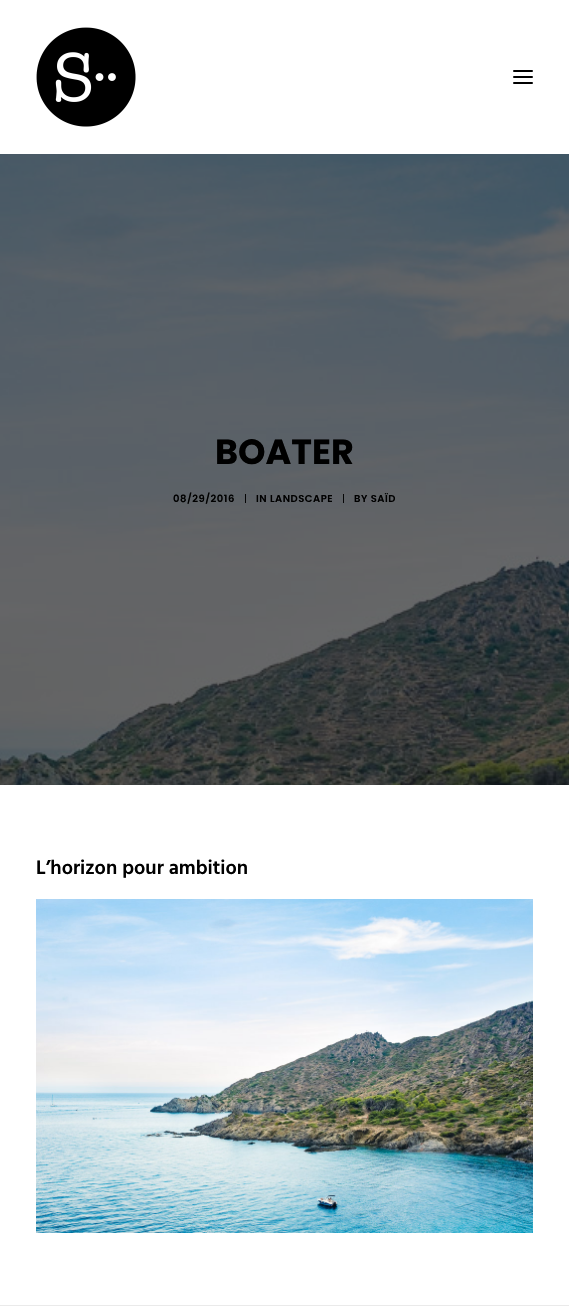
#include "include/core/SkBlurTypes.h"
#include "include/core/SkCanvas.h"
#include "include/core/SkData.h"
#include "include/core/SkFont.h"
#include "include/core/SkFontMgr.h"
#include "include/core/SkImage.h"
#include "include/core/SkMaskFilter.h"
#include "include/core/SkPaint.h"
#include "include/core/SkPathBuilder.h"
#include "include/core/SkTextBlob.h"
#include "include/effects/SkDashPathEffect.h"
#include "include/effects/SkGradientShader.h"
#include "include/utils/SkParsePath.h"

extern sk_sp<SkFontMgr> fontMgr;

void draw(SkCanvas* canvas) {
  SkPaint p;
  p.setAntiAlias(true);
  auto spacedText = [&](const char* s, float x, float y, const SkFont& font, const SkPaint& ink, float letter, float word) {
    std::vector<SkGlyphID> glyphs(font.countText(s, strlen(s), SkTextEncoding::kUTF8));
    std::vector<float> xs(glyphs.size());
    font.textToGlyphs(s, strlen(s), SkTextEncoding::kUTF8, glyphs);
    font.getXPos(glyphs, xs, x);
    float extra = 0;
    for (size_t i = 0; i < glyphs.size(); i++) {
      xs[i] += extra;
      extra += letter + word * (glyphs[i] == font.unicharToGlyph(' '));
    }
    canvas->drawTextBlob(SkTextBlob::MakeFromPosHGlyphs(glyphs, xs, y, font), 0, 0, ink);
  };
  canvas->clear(SK_ColorWHITE);
  canvas->drawImageRect(SkImages::DeferredFromEncodedData(SkData::MakeFromFileName("images/1.png")), SkRect::MakeLTRB(36, 27, 136, 127), SkSamplingOptions());
  p.setColor(SK_ColorBLACK);
  canvas->drawRoundRect(SkRect::MakeLTRB(513, 76, 533, 78), 1, 1, p);
  canvas->drawRoundRect(SkRect::MakeLTRB(513, 70, 533, 72), 1, 1, p);
  canvas->drawRoundRect(SkRect::MakeLTRB(513, 82, 533, 84), 1, 1, p);
  canvas->drawImageRect(SkImages::DeferredFromEncodedData(SkData::MakeFromFileName("images/2.png")), SkRect::MakeLTRB(0, 154, 569, 785), SkSamplingOptions());
  canvas->drawImageRect(SkImages::DeferredFromEncodedData(SkData::MakeFromFileName("images/3.png")), SkRect::MakeLTRB(36, 899, 533, 1233), SkSamplingOptions());
  p.setColor(SkColorSetRGB(234, 234, 234));
  canvas->drawRect(SkRect::MakeLTRB(0, 1305, 569, 1306), p);
  SkFont font1(fontMgr->matchFamilyStyle("Poppins", SkFontStyle::Bold()), 35);
  font1.setSubpixel(true);
  p.setColor(SK_ColorBLACK);
  canvas->drawString("BOATER", 215, 464, font1, p);
  SkFont font2(fontMgr->matchFamilyStyle("Poppins", SkFontStyle(600, SkFontStyle::kNormal_Width, SkFontStyle::kUpright_Slant)), 10);
  font2.setSubpixel(true);
  spacedText("08/29/2016", 173, 502, font2, p, 0.5f, 0);
  SkFont font3(fontMgr->matchFamilyStyle("Poppins", SkFontStyle::Normal()), 10);
  font3.setSubpixel(true);
  spacedText("|", 244, 502, font3, p, 0.5f, 0);
  spacedText("IN LANDSCAPE", 256, 502, font2, p, 0.5f, 0);
  spacedText("|", 342, 502, font3, p, 0.5f, 0);
  spacedText("BY SAÏD", 354, 502, font2, p, 0.5f, 0);
  SkFont font4(fontMgr->matchFamilyStyle("Hind", SkFontStyle(600, SkFontStyle::kNormal_Width, SkFontStyle::kUpright_Slant)), 20);
  font4.setSubpixel(true);
  canvas->drawString("L’horizon pour ambition", 36, 874, font4, p);
}
